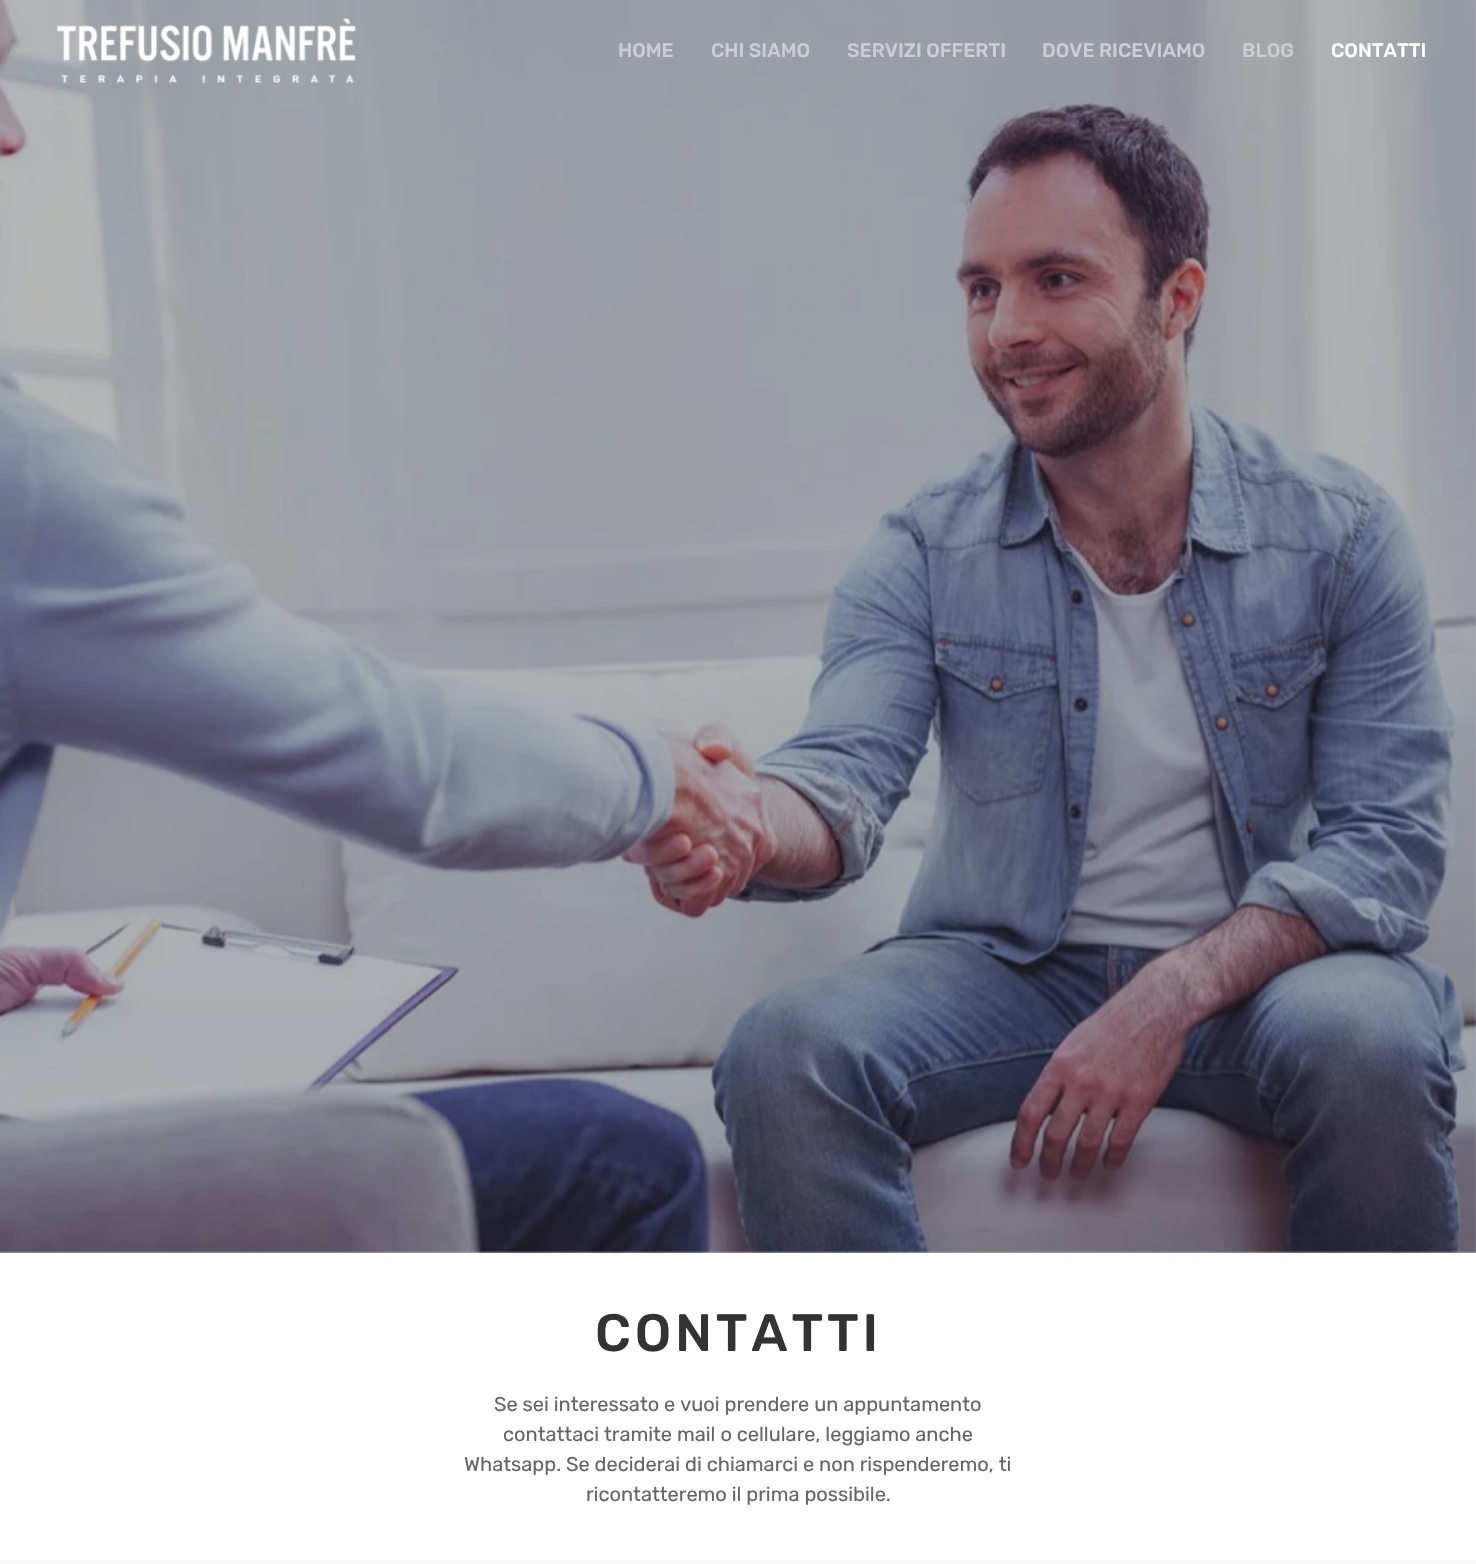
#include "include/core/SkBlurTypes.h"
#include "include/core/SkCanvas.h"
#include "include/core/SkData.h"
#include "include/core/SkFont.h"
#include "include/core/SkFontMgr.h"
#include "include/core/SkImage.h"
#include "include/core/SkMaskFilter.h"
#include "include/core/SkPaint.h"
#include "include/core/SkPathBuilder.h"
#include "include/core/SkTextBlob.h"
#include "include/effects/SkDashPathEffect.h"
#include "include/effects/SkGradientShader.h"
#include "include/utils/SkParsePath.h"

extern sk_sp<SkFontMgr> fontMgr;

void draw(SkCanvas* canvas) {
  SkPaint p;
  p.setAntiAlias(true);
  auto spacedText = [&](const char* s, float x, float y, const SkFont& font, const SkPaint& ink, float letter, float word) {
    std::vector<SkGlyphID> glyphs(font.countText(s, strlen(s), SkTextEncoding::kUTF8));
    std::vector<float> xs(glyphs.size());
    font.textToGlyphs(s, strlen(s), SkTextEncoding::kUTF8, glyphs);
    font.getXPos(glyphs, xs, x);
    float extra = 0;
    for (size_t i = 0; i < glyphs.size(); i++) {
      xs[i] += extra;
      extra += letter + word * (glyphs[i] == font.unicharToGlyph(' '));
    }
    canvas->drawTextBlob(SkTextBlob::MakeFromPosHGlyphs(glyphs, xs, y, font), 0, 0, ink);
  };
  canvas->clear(SK_ColorWHITE);
  p.setColor(SkColorSetRGB(186, 186, 186));
  canvas->drawRect(SkRect::MakeLTRB(0, 0, 1476, 1253), p);
  canvas->drawImageRect(SkImages::DeferredFromEncodedData(SkData::MakeFromFileName("images/2.png")), SkRect::MakeLTRB(0, 0, 1476, 1253), SkSamplingOptions());
  canvas->drawImageRect(SkImages::DeferredFromEncodedData(SkData::MakeFromFileName("images/1.png")), SkRect::MakeLTRB(57, 18, 356, 83), SkSamplingOptions());
  p.setColor(SkColorSetRGB(248, 248, 248));
  canvas->drawRect(SkRect::MakeLTRB(0, 1560, 1476, 1564), p);
  SkFont font1(fontMgr->matchFamilyStyle("Rubik", SkFontStyle(300, SkFontStyle::kNormal_Width, SkFontStyle::kUpright_Slant)), 19.5f);
  font1.setSubpixel(true);
  p.setColor(SkColorSetRGB(204, 206, 211));
  canvas->drawString("HOME", 618, 57, font1, p);
  canvas->drawString("CHI SIAMO", 711, 57, font1, p);
  canvas->drawString("SERVIZI OFFERTI", 847, 57, font1, p);
  canvas->drawString("DOVE RICEVIAMO", 1042, 57, font1, p);
  canvas->drawString("BLOG", 1242, 57, font1, p);
  p.setColor(SK_ColorWHITE);
  canvas->drawString("CONTATTI", 1331, 57, font1, p);
  SkFont font2(fontMgr->matchFamilyStyle("Rubik", SkFontStyle(300, SkFontStyle::kNormal_Width, SkFontStyle::kUpright_Slant)), 52.5f);
  font2.setSubpixel(true);
  p.setColor(SkColorSetRGB(51, 51, 51));
  spacedText("CONTATTI", 595, 1351, font2, p, 3.75f, 0);
  SkFont font3(fontMgr->matchFamilyStyle("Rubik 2", SkFontStyle(300, SkFontStyle::kNormal_Width, SkFontStyle::kUpright_Slant)), 20);
  font3.setSubpixel(true);
  p.setColor(SkColorSetRGB(102, 102, 102));
  canvas->drawString("Se sei interessato e vuoi prendere un appuntamento", 494, 1411, font3, p);
  canvas->drawString("contattaci tramite mail o cellulare, leggiamo anche", 503, 1441, font3, p);
  canvas->drawString("Whatsapp. Se deciderai di chiamarci e non rispenderemo, ti", 464, 1471, font3, p);
  canvas->drawString("ricontatteremo il prima possibile.", 586, 1501, font3, p);
}
